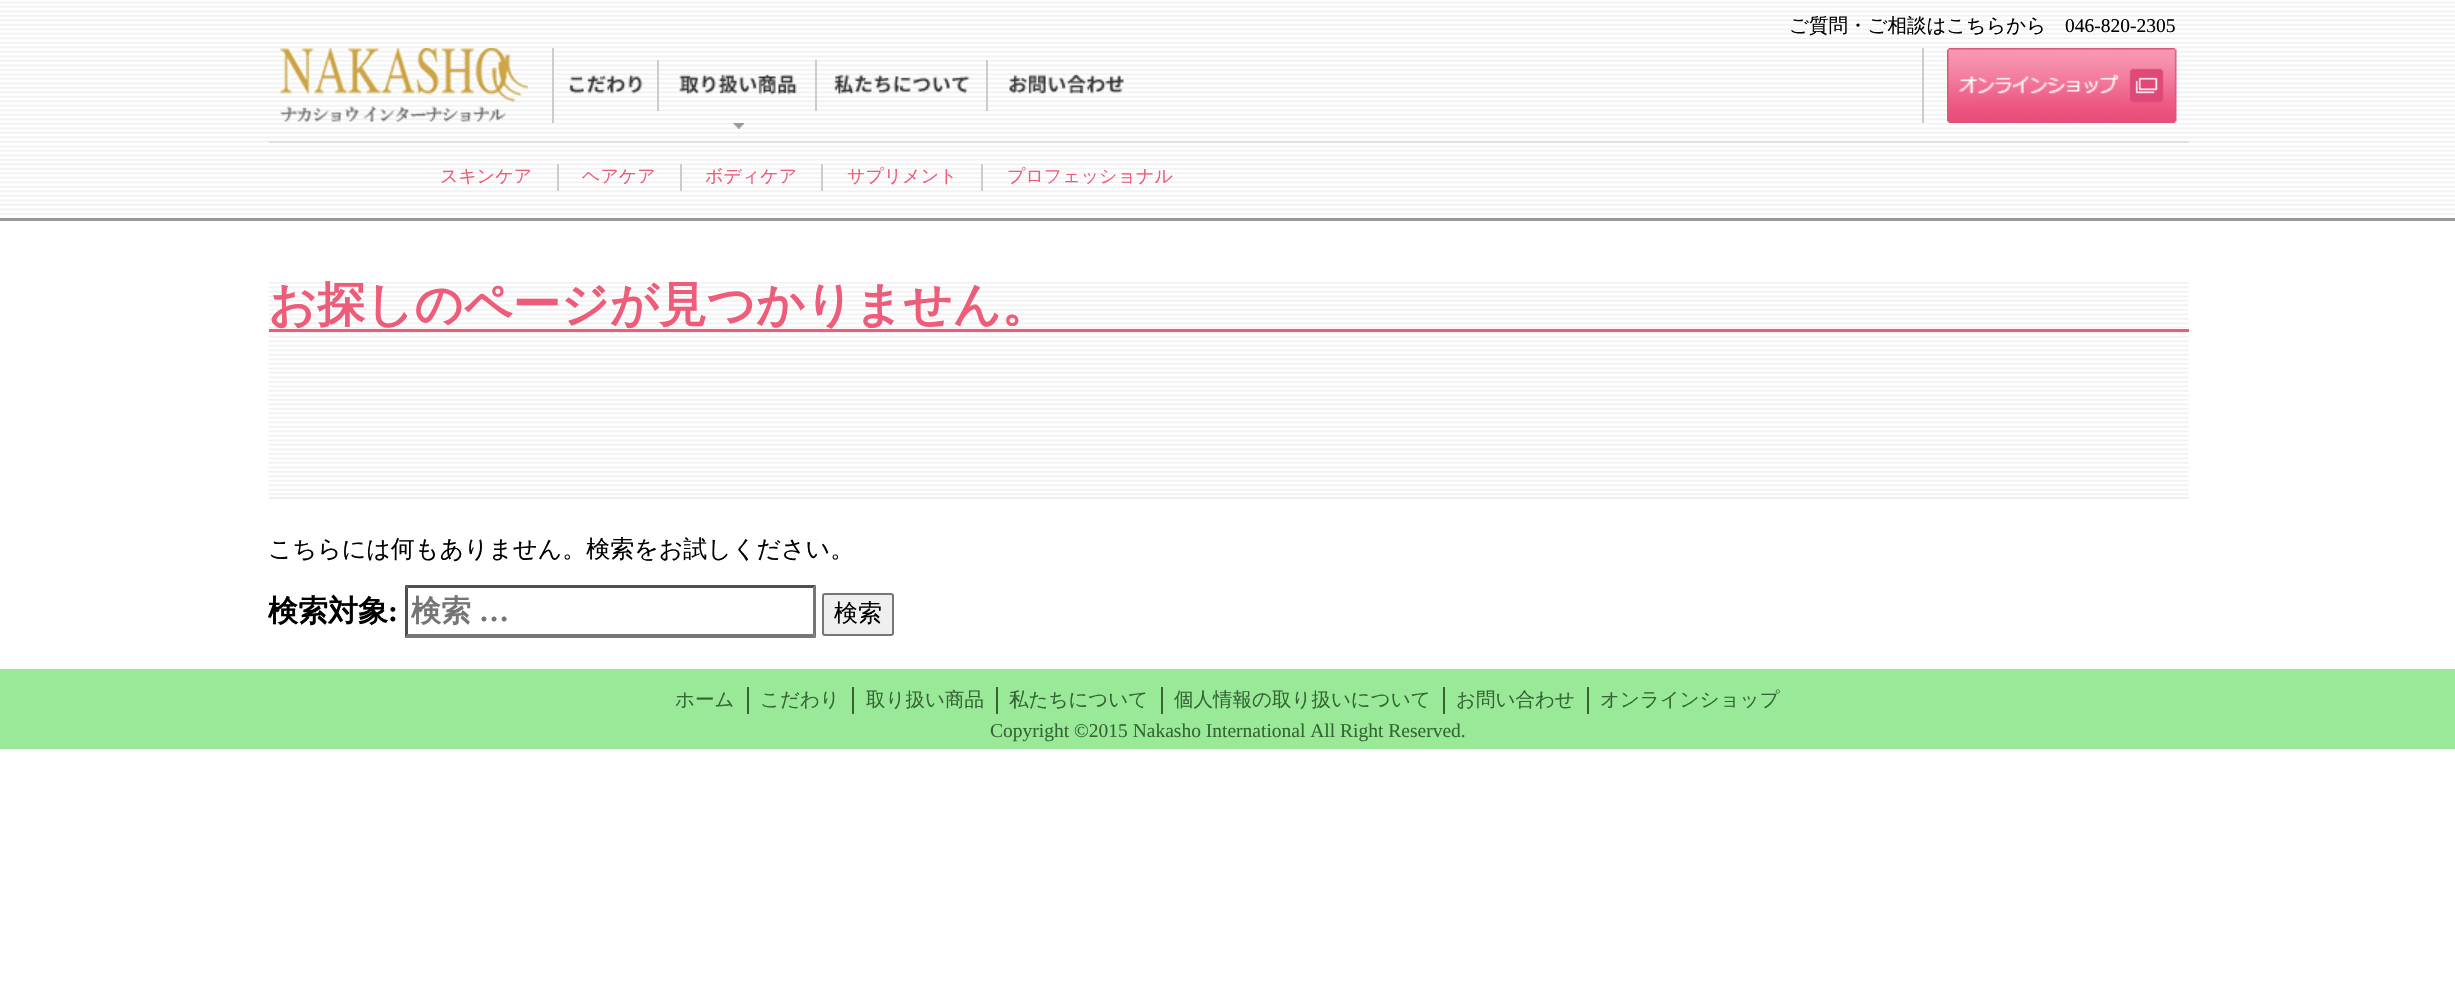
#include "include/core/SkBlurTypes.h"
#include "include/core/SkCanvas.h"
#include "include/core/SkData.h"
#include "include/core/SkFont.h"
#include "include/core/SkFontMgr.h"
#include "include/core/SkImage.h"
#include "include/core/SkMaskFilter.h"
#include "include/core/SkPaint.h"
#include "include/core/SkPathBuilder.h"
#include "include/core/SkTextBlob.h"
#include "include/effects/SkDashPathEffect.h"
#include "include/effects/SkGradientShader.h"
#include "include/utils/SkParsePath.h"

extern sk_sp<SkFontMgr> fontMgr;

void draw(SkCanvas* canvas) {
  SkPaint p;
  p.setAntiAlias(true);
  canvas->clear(SK_ColorWHITE);
  p.setColor(SkColorSetRGB(153, 153, 153));
  canvas->drawRect(SkRect::MakeLTRB(0, 218, 2455, 221), p);
  canvas->drawImageRect(SkImages::DeferredFromEncodedData(SkData::MakeFromFileName("images/1.png")), SkRect::MakeLTRB(0, 1, 2455, 218), SkSamplingOptions());
  canvas->drawImageRect(SkImages::DeferredFromEncodedData(SkData::MakeFromFileName("images/2.png")), SkRect::MakeLTRB(280, 48, 528, 122), SkSamplingOptions());
  p.setColor(SkColorSetRGB(204, 204, 204));
  canvas->drawRect(SkRect::MakeLTRB(1922, 48, 1924, 123), p);
  canvas->drawRect(SkRect::MakeLTRB(552, 48, 554, 123), p);
  canvas->drawImageRect(SkImages::DeferredFromEncodedData(SkData::MakeFromFileName("images/3.png")), SkRect::MakeLTRB(569, 74, 643, 94), SkSamplingOptions());
  canvas->drawRect(SkRect::MakeLTRB(657, 60, 659, 111), p);
  canvas->drawImageRect(SkImages::DeferredFromEncodedData(SkData::MakeFromFileName("images/4.png")), SkRect::MakeLTRB(679, 74, 797, 95), SkSamplingOptions());
  canvas->drawRect(SkRect::MakeLTRB(815, 60, 817, 111), p);
  canvas->drawImageRect(SkImages::DeferredFromEncodedData(SkData::MakeFromFileName("images/5.png")), SkRect::MakeLTRB(833, 74, 970, 95), SkSamplingOptions());
  canvas->drawRect(SkRect::MakeLTRB(986, 60, 988, 111), p);
  canvas->drawImageRect(SkImages::DeferredFromEncodedData(SkData::MakeFromFileName("images/6.png")), SkRect::MakeLTRB(1009, 74, 1124, 94), SkSamplingOptions());
  canvas->drawImageRect(SkImages::DeferredFromEncodedData(SkData::MakeFromFileName("images/7.png")), SkRect::MakeLTRB(1947, 48, 2177, 123), SkSamplingOptions());
  canvas->drawImageRect(SkImages::DeferredFromEncodedData(SkData::MakeFromFileName("images/8.png")), SkRect::MakeLTRB(733, 123, 744, 129), SkSamplingOptions());
  p.setColor(SkColorSetRGB(223, 223, 223));
  canvas->drawRect(SkRect::MakeLTRB(269, 141, 2189, 143), p);
  p.setColor(SkColorSetRGB(204, 204, 204));
  canvas->drawRect(SkRect::MakeLTRB(557, 164, 559, 191), p);
  canvas->drawRect(SkRect::MakeLTRB(680, 164, 682, 191), p);
  canvas->drawRect(SkRect::MakeLTRB(821, 164, 823, 191), p);
  canvas->drawRect(SkRect::MakeLTRB(981, 164, 983, 191), p);
  canvas->drawImageRect(SkImages::DeferredFromEncodedData(SkData::MakeFromFileName("images/9.png")), SkRect::MakeLTRB(268, 282, 2189, 495), SkSamplingOptions());
  p.setColor(SkColorSetRGB(238, 238, 238));
  canvas->drawRect(SkRect::MakeLTRB(269, 497, 2189, 499), p);
  p.setColor(SkColorSetRGB(237, 92, 121));
  canvas->drawRect(SkRect::MakeLTRB(269, 329, 2189, 332), p);
  p.setColor(SkColorSetRGB(79, 79, 79));
  canvas->drawPath(SkPathBuilder().moveTo(405, 585).lineTo(816, 585).lineTo(813, 588).lineTo(408, 588).close().detach(), p);
  p.setColor(SkColorSetRGB(118, 118, 118));
  canvas->drawPath(SkPathBuilder().moveTo(816, 585).lineTo(816, 638).lineTo(813, 634).lineTo(813, 588).close().detach(), p);
  canvas->drawPath(SkPathBuilder().moveTo(816, 638).lineTo(405, 638).lineTo(408, 634).lineTo(813, 634).close().detach(), p);
  p.setColor(SkColorSetRGB(79, 79, 79));
  canvas->drawPath(SkPathBuilder().moveTo(405, 638).lineTo(405, 585).lineTo(408, 588).lineTo(408, 634).close().detach(), p);
  p.setColor(SkColorSetRGB(239, 239, 239));
  canvas->drawRoundRect(SkRect::MakeLTRB(823, 594, 893, 635), 2, 2, p);
  p.setStyle(SkPaint::kStroke_Style);
  p.setStrokeWidth(2);
  p.setColor(SkColorSetRGB(118, 118, 118));
  canvas->drawRoundRect(SkRect::MakeLTRB(823, 594, 893, 635), 2, 2, p);
  p.setStyle(SkPaint::kFill_Style);
  p.setColor(SkColorSetRGB(153, 233, 153));
  canvas->drawRect(SkRect::MakeLTRB(0, 669, 2455, 749), p);
  p.setColor(SkColorSetRGB(51, 102, 51));
  canvas->drawRect(SkRect::MakeLTRB(747, 687, 749, 714), p);
  canvas->drawRect(SkRect::MakeLTRB(852, 687, 854, 714), p);
  canvas->drawRect(SkRect::MakeLTRB(996, 687, 998, 714), p);
  canvas->drawRect(SkRect::MakeLTRB(1161, 687, 1163, 714), p);
  canvas->drawRect(SkRect::MakeLTRB(1443, 687, 1445, 714), p);
  canvas->drawRect(SkRect::MakeLTRB(1587, 687, 1589, 714), p);
  SkFont font1(fontMgr->matchFamilyStyle("WenQuanYi Zen Hei", SkFontStyle(500, SkFontStyle::kNormal_Width, SkFontStyle::kUpright_Slant)), 19.5f);
  font1.setSubpixel(true);
  p.setColor(SK_ColorBLACK);
  canvas->drawString("ご質問・ご相談はこちらから", 1789, 32, font1, p);
  SkFont font2(fontMgr->matchFamilyStyle("Liberation Serif", SkFontStyle::Normal()), 19.5f);
  font2.setSubpixel(true);
  canvas->drawString("046-820-2305", 2065, 32, font2, p);
  SkFont font3(fontMgr->matchFamilyStyle("WenQuanYi Zen Hei", SkFontStyle(500, SkFontStyle::kNormal_Width, SkFontStyle::kUpright_Slant)), 18);
  font3.setSubpixel(true);
  p.setColor(SkColorSetRGB(237, 92, 121));
  canvas->drawString("スキンケア", 440, 182, font3, p);
  canvas->drawString("ヘアケア", 582, 182, font3, p);
  canvas->drawString("ボディケア", 705, 182, font3, p);
  canvas->drawString("サプリメント", 847, 182, font3, p);
  canvas->drawString("プロフェッショナル", 1007, 182, font3, p);
  SkFont font4(fontMgr->matchFamilyStyle("WenQuanYi Zen Hei", SkFontStyle::Bold()), 48);
  font4.setSubpixel(true);
  canvas->drawString("お探しのページが見つかりません。", 268, 321, font4, p);
  SkFont font5(fontMgr->matchFamilyStyle("WenQuanYi Zen Hei", SkFontStyle(500, SkFontStyle::kNormal_Width, SkFontStyle::kUpright_Slant)), 24);
  font5.setSubpixel(true);
  p.setColor(SK_ColorBLACK);
  canvas->drawString("こちらには何もありません。検索をお試しください。", 268, 557, font5, p);
  SkFont font6(fontMgr->matchFamilyStyle("WenQuanYi Zen Hei", SkFontStyle::Bold()), 30);
  font6.setSubpixel(true);
  canvas->drawString("検索対象", 268, 621, font6, p);
  SkFont font7(fontMgr->matchFamilyStyle("Liberation Serif", SkFontStyle::Bold()), 30);
  font7.setSubpixel(true);
  canvas->drawString(":", 388, 621, font7, p);
  p.setColor(SkColorSetRGB(117, 117, 117));
  canvas->drawString("検索", 411, 621, font6, p);
  canvas->drawString("…", 479, 621, font7, p);
  p.setColor(SK_ColorBLACK);
  canvas->drawString("検索", 834, 621, font5, p);
  p.setColor(SkColorSetRGB(51, 102, 51));
  canvas->drawString("ホーム", 675, 706, font1, p);
  canvas->drawString("こだわり", 760, 706, font1, p);
  canvas->drawString("取り扱い商品", 866, 706, font1, p);
  canvas->drawString("私たちについて", 1009, 706, font1, p);
  canvas->drawString("個人情報の取り扱いについて", 1174, 706, font1, p);
  canvas->drawString("お問い合わせ", 1456, 706, font1, p);
  canvas->drawString("オンラインショップ", 1600, 706, font1, p);
  canvas->drawString("Copyright ©2015 Nakasho International All Right Reserved.", 990, 737, font2, p);
}
